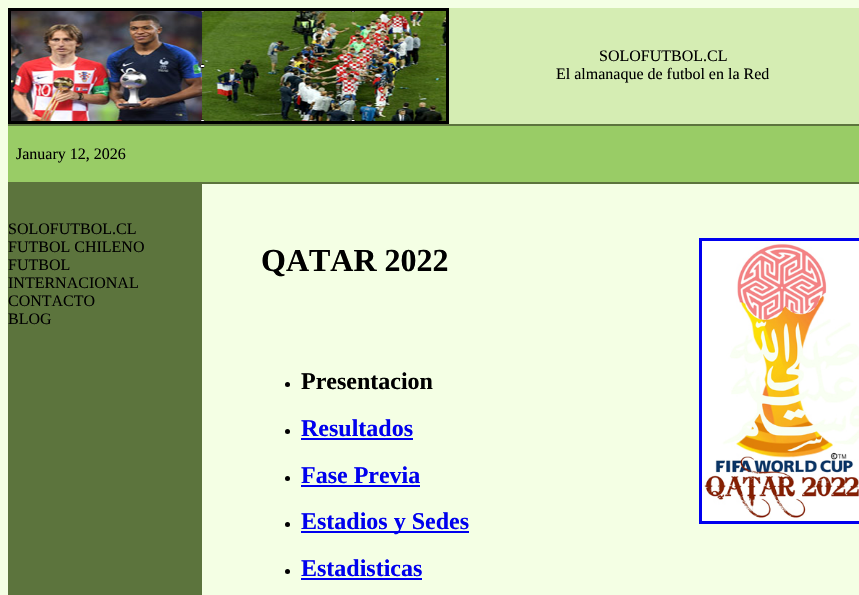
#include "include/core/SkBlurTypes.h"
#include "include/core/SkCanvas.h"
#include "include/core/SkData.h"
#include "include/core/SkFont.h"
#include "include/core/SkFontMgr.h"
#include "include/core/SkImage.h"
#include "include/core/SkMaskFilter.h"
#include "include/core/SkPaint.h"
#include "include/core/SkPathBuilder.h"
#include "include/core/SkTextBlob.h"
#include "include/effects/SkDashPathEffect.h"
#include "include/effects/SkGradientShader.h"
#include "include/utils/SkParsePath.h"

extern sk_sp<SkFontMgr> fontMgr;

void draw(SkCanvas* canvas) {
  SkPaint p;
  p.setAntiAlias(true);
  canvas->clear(SkColorSetRGB(244, 255, 228));
  p.setColor(SkColorSetRGB(213, 237, 179));
  canvas->drawRect(SkRect::MakeLTRB(449, 8, 859, 124), p);
  p.setStyle(SkPaint::kStroke_Style);
  p.setStrokeWidth(3);
  p.setColor(SK_ColorBLACK);
  canvas->drawRect(SkRect::MakeLTRB(9.5f, 9.5f, 447.5f, 122.5f), p);
  canvas->drawImageRect(SkImages::DeferredFromEncodedData(SkData::MakeFromFileName("images/1.png")), SkRect::MakeLTRB(11, 11, 446, 121), SkSamplingOptions());
  p.setStyle(SkPaint::kFill_Style);
  p.setColor(SkColorSetRGB(92, 116, 61));
  canvas->drawRect(SkRect::MakeLTRB(8, 124, 859, 126), p);
  p.setColor(SkColorSetRGB(153, 204, 102));
  canvas->drawRect(SkRect::MakeLTRB(8, 126, 859, 182), p);
  p.setColor(SkColorSetRGB(92, 116, 61));
  canvas->drawRect(SkRect::MakeLTRB(8, 182, 859, 184), p);
  canvas->drawRect(SkRect::MakeLTRB(8, 184, 202, 595), p);
  p.setColor(SK_ColorBLACK);
  canvas->drawCircle(287.5f, 384.5f, 2.5f, p);
  canvas->drawCircle(287.5f, 431.5f, 2.5f, p);
  p.setColor(SkColorSetRGB(0, 0, 238));
  canvas->drawRect(SkRect::MakeLTRB(301, 438, 413, 440), p);
  p.setColor(SK_ColorBLACK);
  canvas->drawCircle(287.5f, 478.5f, 2.5f, p);
  p.setColor(SkColorSetRGB(0, 0, 238));
  canvas->drawRect(SkRect::MakeLTRB(301, 485, 420, 487), p);
  p.setColor(SK_ColorBLACK);
  canvas->drawCircle(287.5f, 524.5f, 2.5f, p);
  p.setColor(SkColorSetRGB(0, 0, 238));
  canvas->drawRect(SkRect::MakeLTRB(301, 531, 469, 533), p);
  p.setColor(SK_ColorBLACK);
  canvas->drawCircle(287.5f, 571.5f, 2.5f, p);
  p.setColor(SkColorSetRGB(0, 0, 238));
  canvas->drawRect(SkRect::MakeLTRB(301, 578, 422, 580), p);
  p.setStyle(SkPaint::kStroke_Style);
  canvas->drawRect(SkRect::MakeLTRB(700.5f, 239.5f, 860.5f, 522.5f), p);
  canvas->drawImageRect(SkImages::DeferredFromEncodedData(SkData::MakeFromFileName("images/2.png")), SkRect::MakeLTRB(702, 241, 859, 521), SkSamplingOptions());
  SkFont font1(fontMgr->matchFamilyStyle("Liberation Serif", SkFontStyle::Normal()), 16);
  font1.setSubpixel(true);
  p.setStyle(SkPaint::kFill_Style);
  p.setColor(SK_ColorBLACK);
  canvas->drawString("SOLOFUTBOL.CL", 599, 61, font1, p);
  canvas->drawString("El almanaque de futbol en la Red", 556, 79, font1, p);
  canvas->drawString("January 12, 2026", 16, 159, font1, p);
  canvas->drawString("SOLOFUTBOL.CL", 8, 234, font1, p);
  canvas->drawString("FUTBOL CHILENO", 8, 252, font1, p);
  canvas->drawString("FUTBOL", 8, 270, font1, p);
  canvas->drawString("INTERNACIONAL", 8, 288, font1, p);
  canvas->drawString("CONTACTO", 8, 306, font1, p);
  canvas->drawString("BLOG", 8, 324, font1, p);
  SkFont font2(fontMgr->matchFamilyStyle("Liberation Serif", SkFontStyle::Bold()), 32);
  font2.setSubpixel(true);
  canvas->drawString("QATAR 2022", 261, 271, font2, p);
  SkFont font3(fontMgr->matchFamilyStyle("Liberation Serif", SkFontStyle::Bold()), 24);
  font3.setSubpixel(true);
  canvas->drawString("Presentacion", 301, 389, font3, p);
  p.setColor(SkColorSetRGB(0, 0, 238));
  canvas->drawString("Resultados", 301, 436, font3, p);
  canvas->drawString("Fase Previa", 301, 483, font3, p);
  canvas->drawString("Estadios y Sedes", 301, 529, font3, p);
  canvas->drawString("Estadisticas", 301, 576, font3, p);
}
